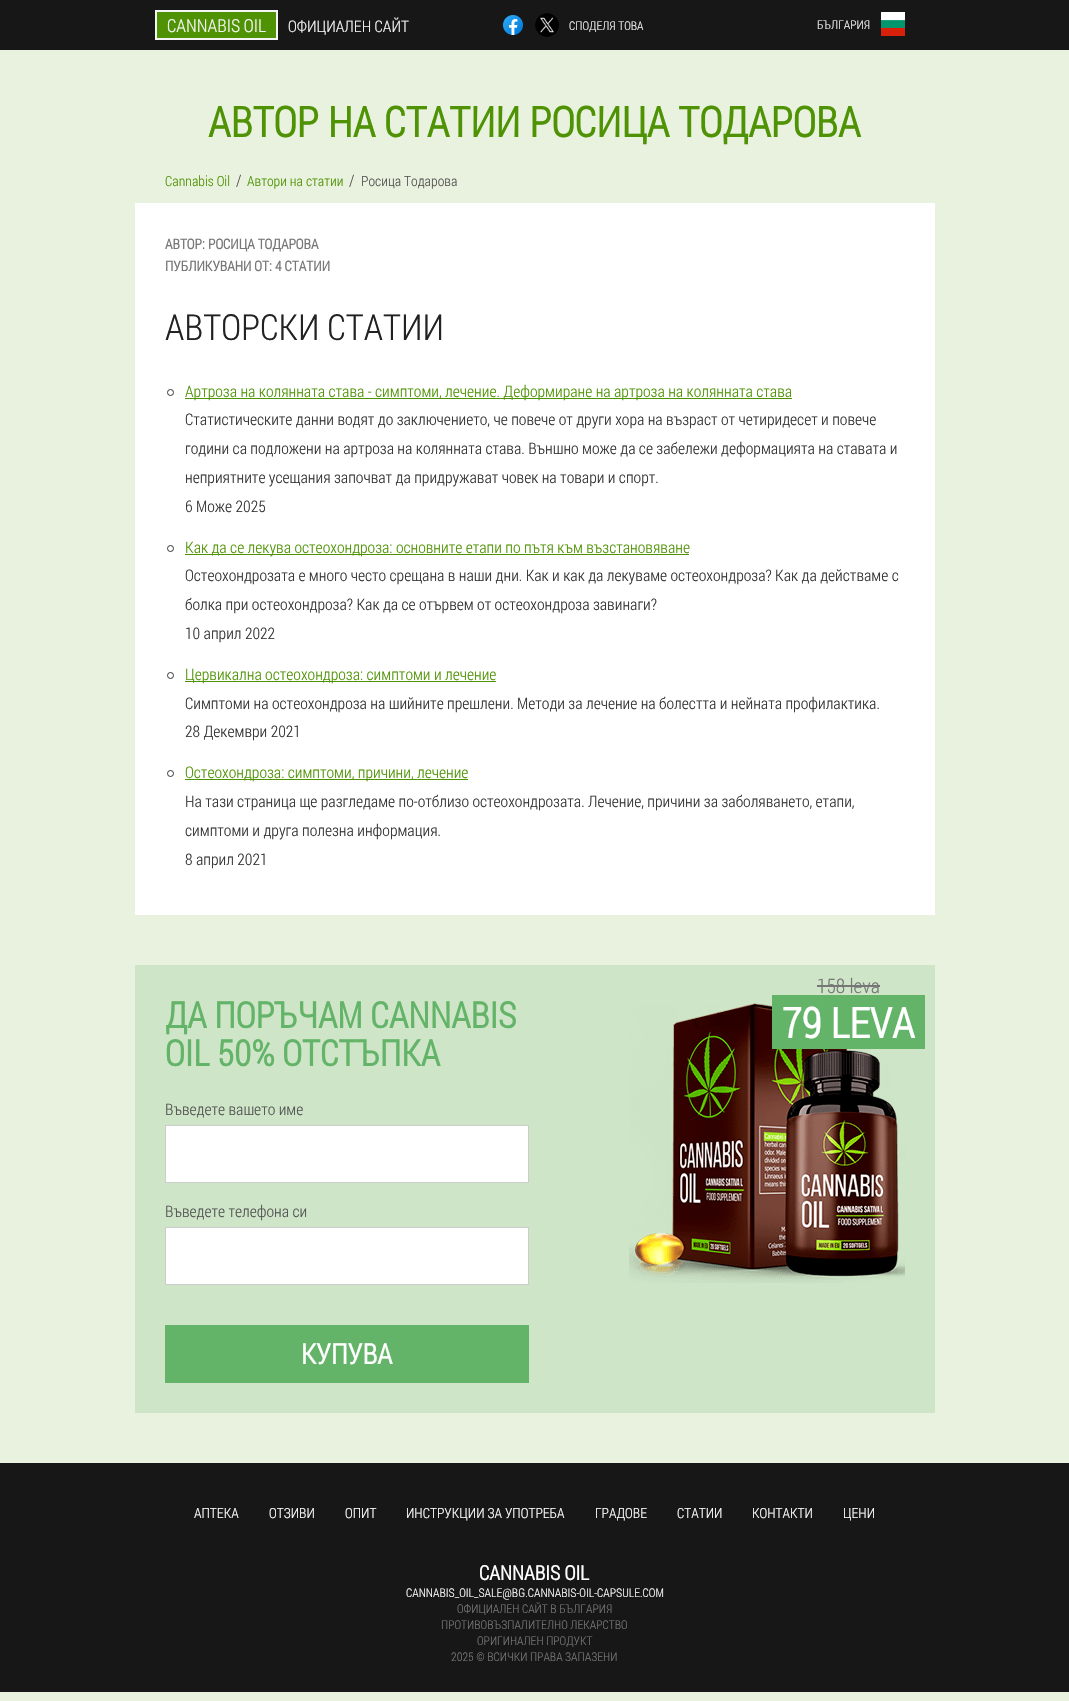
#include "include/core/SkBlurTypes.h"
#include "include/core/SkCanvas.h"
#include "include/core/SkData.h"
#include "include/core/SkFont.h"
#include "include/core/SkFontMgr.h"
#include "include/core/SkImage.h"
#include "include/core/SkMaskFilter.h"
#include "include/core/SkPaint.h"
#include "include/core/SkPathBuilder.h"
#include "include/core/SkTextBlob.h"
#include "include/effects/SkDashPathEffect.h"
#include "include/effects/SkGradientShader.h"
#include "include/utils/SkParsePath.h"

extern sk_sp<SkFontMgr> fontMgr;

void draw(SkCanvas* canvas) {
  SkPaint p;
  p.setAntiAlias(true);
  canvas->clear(SkColorSetRGB(233, 242, 223));
  p.setColor(SkColorSetRGB(23, 23, 23));
  canvas->drawRect(SkRect::MakeLTRB(0, 0, 1069, 50), p);
  p.setColor(SkColorSetRGB(79, 147, 5));
  canvas->drawRect(SkRect::MakeLTRB(156, 11, 277, 39), p);
  p.setStyle(SkPaint::kStroke_Style);
  p.setStrokeWidth(2);
  p.setColor(SkColorSetRGB(245, 245, 245));
  canvas->drawRect(SkRect::MakeLTRB(156, 11, 277, 39), p);
  canvas->drawImageRect(SkImages::DeferredFromEncodedData(SkData::MakeFromFileName("images/1.png")), SkRect::MakeLTRB(503, 15, 523, 35), SkSamplingOptions());
  canvas->drawImageRect(SkImages::DeferredFromEncodedData(SkData::MakeFromFileName("images/2.png")), SkRect::MakeLTRB(535, 13, 559, 37), SkSamplingOptions());
  canvas->drawImageRect(SkImages::DeferredFromEncodedData(SkData::MakeFromFileName("images/3.png")), SkRect::MakeLTRB(881, 12, 905, 36), SkSamplingOptions());
  p.setStyle(SkPaint::kFill_Style);
  p.setColor(SK_ColorWHITE);
  canvas->drawRect(SkRect::MakeLTRB(135, 203, 935, 915), p);
  p.setStyle(SkPaint::kStroke_Style);
  p.setStrokeWidth(1);
  p.setColor(SkColorSetRGB(52, 52, 52));
  canvas->drawCircle(170.5f, 392.5f, 3, p);
  p.setStyle(SkPaint::kFill_Style);
  p.setColor(SkColorSetRGB(79, 147, 5));
  canvas->drawRect(SkRect::MakeLTRB(185, 398, 792, 399), p);
  p.setStyle(SkPaint::kStroke_Style);
  p.setColor(SkColorSetRGB(52, 52, 52));
  canvas->drawCircle(170.5f, 548.5f, 3, p);
  p.setStyle(SkPaint::kFill_Style);
  p.setColor(SkColorSetRGB(79, 147, 5));
  canvas->drawRect(SkRect::MakeLTRB(185, 554, 689, 555), p);
  p.setStyle(SkPaint::kStroke_Style);
  p.setColor(SkColorSetRGB(52, 52, 52));
  canvas->drawCircle(170.5f, 675.5f, 3, p);
  p.setStyle(SkPaint::kFill_Style);
  p.setColor(SkColorSetRGB(79, 147, 5));
  canvas->drawRect(SkRect::MakeLTRB(185, 681, 496, 682), p);
  p.setStyle(SkPaint::kStroke_Style);
  p.setColor(SkColorSetRGB(52, 52, 52));
  canvas->drawCircle(170.5f, 773.5f, 3, p);
  p.setStyle(SkPaint::kFill_Style);
  p.setColor(SkColorSetRGB(79, 147, 5));
  canvas->drawRect(SkRect::MakeLTRB(185, 779, 468, 780), p);
  p.setColor(SkColorSetRGB(206, 229, 200));
  canvas->drawRect(SkRect::MakeLTRB(135, 965, 935, 1413), p);
  p.setColor(SK_ColorWHITE);
  canvas->drawRect(SkRect::MakeLTRB(165.5f, 1125.5f, 528.5f, 1182.5f), p);
  p.setStyle(SkPaint::kStroke_Style);
  p.setColor(SkColorSetRGB(204, 204, 204));
  canvas->drawRect(SkRect::MakeLTRB(165.5f, 1125.5f, 528.5f, 1182.5f), p);
  p.setStyle(SkPaint::kFill_Style);
  p.setColor(SK_ColorWHITE);
  canvas->drawRect(SkRect::MakeLTRB(165.5f, 1227.5f, 528.5f, 1284.5f), p);
  p.setStyle(SkPaint::kStroke_Style);
  p.setColor(SkColorSetRGB(204, 204, 204));
  canvas->drawRect(SkRect::MakeLTRB(165.5f, 1227.5f, 528.5f, 1284.5f), p);
  p.setStyle(SkPaint::kFill_Style);
  p.setColor(SkColorSetRGB(99, 180, 104));
  canvas->drawRect(SkRect::MakeLTRB(165, 1325, 529, 1383), p);
  canvas->drawImageRect(SkImages::DeferredFromEncodedData(SkData::MakeFromFileName("images/4.png")), SkRect::MakeLTRB(629, 1003, 905, 1283), SkSamplingOptions());
  canvas->drawRect(SkRect::MakeLTRB(772, 995, 925, 1049), p);
  p.setColor(SkColorSetRGB(119, 119, 119));
  canvas->drawRect(SkRect::MakeLTRB(817, 985, 880, 987), p);
  p.setColor(SkColorSetRGB(23, 23, 23));
  canvas->drawRect(SkRect::MakeLTRB(0, 1463, 1069, 1692), p);
  SkFont font1(fontMgr->matchFamilyStyle("Roboto Condensed", SkFontStyle(300, SkFontStyle::kNormal_Width, SkFontStyle::kUpright_Slant)), 18);
  font1.setSubpixel(true);
  p.setColor(SkColorSetRGB(245, 245, 245));
  canvas->drawString("CANNABIS OIL", 167, 32, font1, p);
  SkFont font2(fontMgr->matchFamilyStyle("Roboto Condensed", SkFontStyle(300, SkFontStyle::kNormal_Width, SkFontStyle::kUpright_Slant)), 16);
  font2.setSubpixel(true);
  canvas->drawString("ОФИЦИАЛЕН САЙТ", 288, 32, font2, p);
  SkFont font3(fontMgr->matchFamilyStyle("Roboto Condensed", SkFontStyle(300, SkFontStyle::kNormal_Width, SkFontStyle::kUpright_Slant)), 12);
  font3.setSubpixel(true);
  canvas->drawString("СПОДЕЛЯ ТОВА", 569, 30, font3, p);
  canvas->drawString("БЪЛГАРИЯ", 817, 29, font3, p);
  SkFont font4(fontMgr->matchFamilyStyle("Roboto Condensed", SkFontStyle::Bold()), 42);
  font4.setSubpixel(true);
  p.setColor(SkColorSetRGB(79, 147, 5));
  canvas->drawString("АВТОР НА СТАТИИ РОСИЦА ТОДАРОВА", 208, 137, font4, p);
  SkFont font5(fontMgr->matchFamilyStyle("Roboto Condensed", SkFontStyle(300, SkFontStyle::kNormal_Width, SkFontStyle::kUpright_Slant)), 14);
  font5.setSubpixel(true);
  canvas->drawString("Cannabis Oil", 165, 186, font5, p);
  p.setColor(SkColorSetRGB(84, 84, 84));
  canvas->drawString("/", 236, 186, font2, p);
  p.setColor(SkColorSetRGB(79, 147, 5));
  canvas->drawString("Автори на статии", 247, 186, font5, p);
  p.setColor(SkColorSetRGB(84, 84, 84));
  canvas->drawString("/", 349, 186, font2, p);
  canvas->drawString("Росица Тодарова", 361, 186, font5, p);
  SkFont font6(fontMgr->matchFamilyStyle("Roboto Condensed", SkFontStyle::Bold()), 14);
  font6.setSubpixel(true);
  p.setColor(SkColorSetRGB(119, 119, 119));
  canvas->drawString("АВТОР:", 165, 249, font6, p);
  canvas->drawString("РОСИЦА ТОДАРОВА", 208, 249, font6, p);
  canvas->drawString("ПУБЛИКУВАНИ ОТ:", 165, 271, font6, p);
  canvas->drawString("4 СТАТИИ", 275, 271, font6, p);
  SkFont font7(fontMgr->matchFamilyStyle("Roboto Condensed", SkFontStyle(300, SkFontStyle::kNormal_Width, SkFontStyle::kUpright_Slant)), 36);
  font7.setSubpixel(true);
  p.setColor(SkColorSetRGB(34, 34, 34));
  canvas->drawString("АВТОРСКИ СТАТИИ", 165, 340, font7, p);
  p.setColor(SkColorSetRGB(79, 147, 5));
  canvas->drawString("Артроза на колянната става - симптоми, лечение. Деформиране на артроза на колянната става", 185, 397, font2, p);
  p.setColor(SkColorSetRGB(52, 52, 52));
  canvas->drawString("Статистическите данни водят до заключението, че повече от други хора на възраст от четиридесет и повече", 185, 425, font2, p);
  canvas->drawString("години са подложени на артроза на колянната става. Външно може да се забележи деформацията на ставата и", 185, 454, font2, p);
  canvas->drawString("неприятните усещания започват да придружават човек на товари и спорт.", 185, 483, font2, p);
  canvas->drawString("6 Може 2025", 185, 512, font2, p);
  p.setColor(SkColorSetRGB(79, 147, 5));
  canvas->drawString("Как да се лекува остеохондроза: основните етапи по пътя към възстановяване", 185, 553, font2, p);
  p.setColor(SkColorSetRGB(52, 52, 52));
  canvas->drawString("Остеохондрозата е много често срещана в наши дни. Как и как да лекуваме остеохондроза? Как да действаме с", 185, 581, font2, p);
  canvas->drawString("болка при остеохондроза? Как да се отървем от остеохондроза завинаги?", 185, 610, font2, p);
  canvas->drawString("10 април 2022", 185, 639, font2, p);
  p.setColor(SkColorSetRGB(79, 147, 5));
  canvas->drawString("Цервикална остеохондроза: симптоми и лечение", 185, 680, font2, p);
  p.setColor(SkColorSetRGB(52, 52, 52));
  canvas->drawString("Симптоми на остеохондроза на шийните прешлени. Методи за лечение на болестта и нейната профилактика.", 185, 709, font2, p);
  canvas->drawString("28 Декември 2021", 185, 737, font2, p);
  p.setColor(SkColorSetRGB(79, 147, 5));
  canvas->drawString("Остеохондроза: симптоми, причини, лечение", 185, 778, font2, p);
  p.setColor(SkColorSetRGB(52, 52, 52));
  canvas->drawString("На тази страница ще разгледаме по-отблизо остеохондрозата. Лечение, причини за заболяването, етапи,", 185, 807, font2, p);
  canvas->drawString("симптоми и друга полезна информация.", 185, 836, font2, p);
  canvas->drawString("8 април 2021", 185, 865, font2, p);
  SkFont font8(fontMgr->matchFamilyStyle("Roboto Condensed", SkFontStyle::Bold()), 36);
  font8.setSubpixel(true);
  p.setColor(SkColorSetRGB(99, 180, 104));
  canvas->drawString("ДА ПОРЪЧАМ CANNABIS", 165, 1028, font8, p);
  canvas->drawString("OIL 50% ОТСТЪПКА", 165, 1066, font8, p);
  p.setColor(SkColorSetRGB(84, 84, 84));
  canvas->drawString("Въведете вашето име", 165, 1115, font2, p);
  canvas->drawString("Въведете телефона си", 165, 1217, font2, p);
  SkFont font9(fontMgr->matchFamilyStyle("Roboto Condensed", SkFontStyle::Bold()), 28);
  font9.setSubpixel(true);
  p.setColor(SK_ColorWHITE);
  canvas->drawString("КУПУВА", 301, 1364, font9, p);
  SkFont font10(fontMgr->matchFamilyStyle("Roboto Condensed", SkFontStyle(300, SkFontStyle::kNormal_Width, SkFontStyle::kUpright_Slant)), 20);
  font10.setSubpixel(true);
  p.setColor(SkColorSetRGB(119, 119, 119));
  canvas->drawString("158 leva", 817, 993, font10, p);
  p.setColor(SK_ColorWHITE);
  canvas->drawString("79 LEVA", 782, 1038, font4, p);
  canvas->drawString("АПТЕКА", 194, 1518, font5, p);
  canvas->drawString("ОТЗИВИ", 269, 1518, font5, p);
  canvas->drawString("ОПИТ", 345, 1518, font5, p);
  canvas->drawString("ИНСТРУКЦИИ ЗА УПОТРЕБА", 406, 1518, font5, p);
  canvas->drawString("ГРАДОВЕ", 595, 1518, font5, p);
  canvas->drawString("СТАТИИ", 677, 1518, font5, p);
  canvas->drawString("КОНТАКТИ", 752, 1518, font5, p);
  canvas->drawString("ЦЕНИ", 843, 1518, font5, p);
  SkFont font11(fontMgr->matchFamilyStyle("Roboto Condensed", SkFontStyle::Bold()), 20);
  font11.setSubpixel(true);
  canvas->drawString("CANNABIS OIL", 479, 1580, font11, p);
  canvas->drawString("CANNABIS_OIL_SALE@BG.CANNABIS-OIL-CAPSULE.COM", 406, 1597, font3, p);
  p.setColor(SkColorSetRGB(119, 119, 119));
  canvas->drawString("ОФИЦИАЛЕН САЙТ В БЪЛГАРИЯ", 457, 1613, font3, p);
  canvas->drawString("ПРОТИВОВЪЗПАЛИТЕЛНО ЛЕКАРСТВО", 441, 1629, font3, p);
  canvas->drawString("ОРИГИНАЛЕН ПРОДУКТ", 477, 1645, font3, p);
  canvas->drawString("2025 © ВСИЧКИ ПРАВА ЗАПАЗЕНИ", 451, 1661, font3, p);
}
